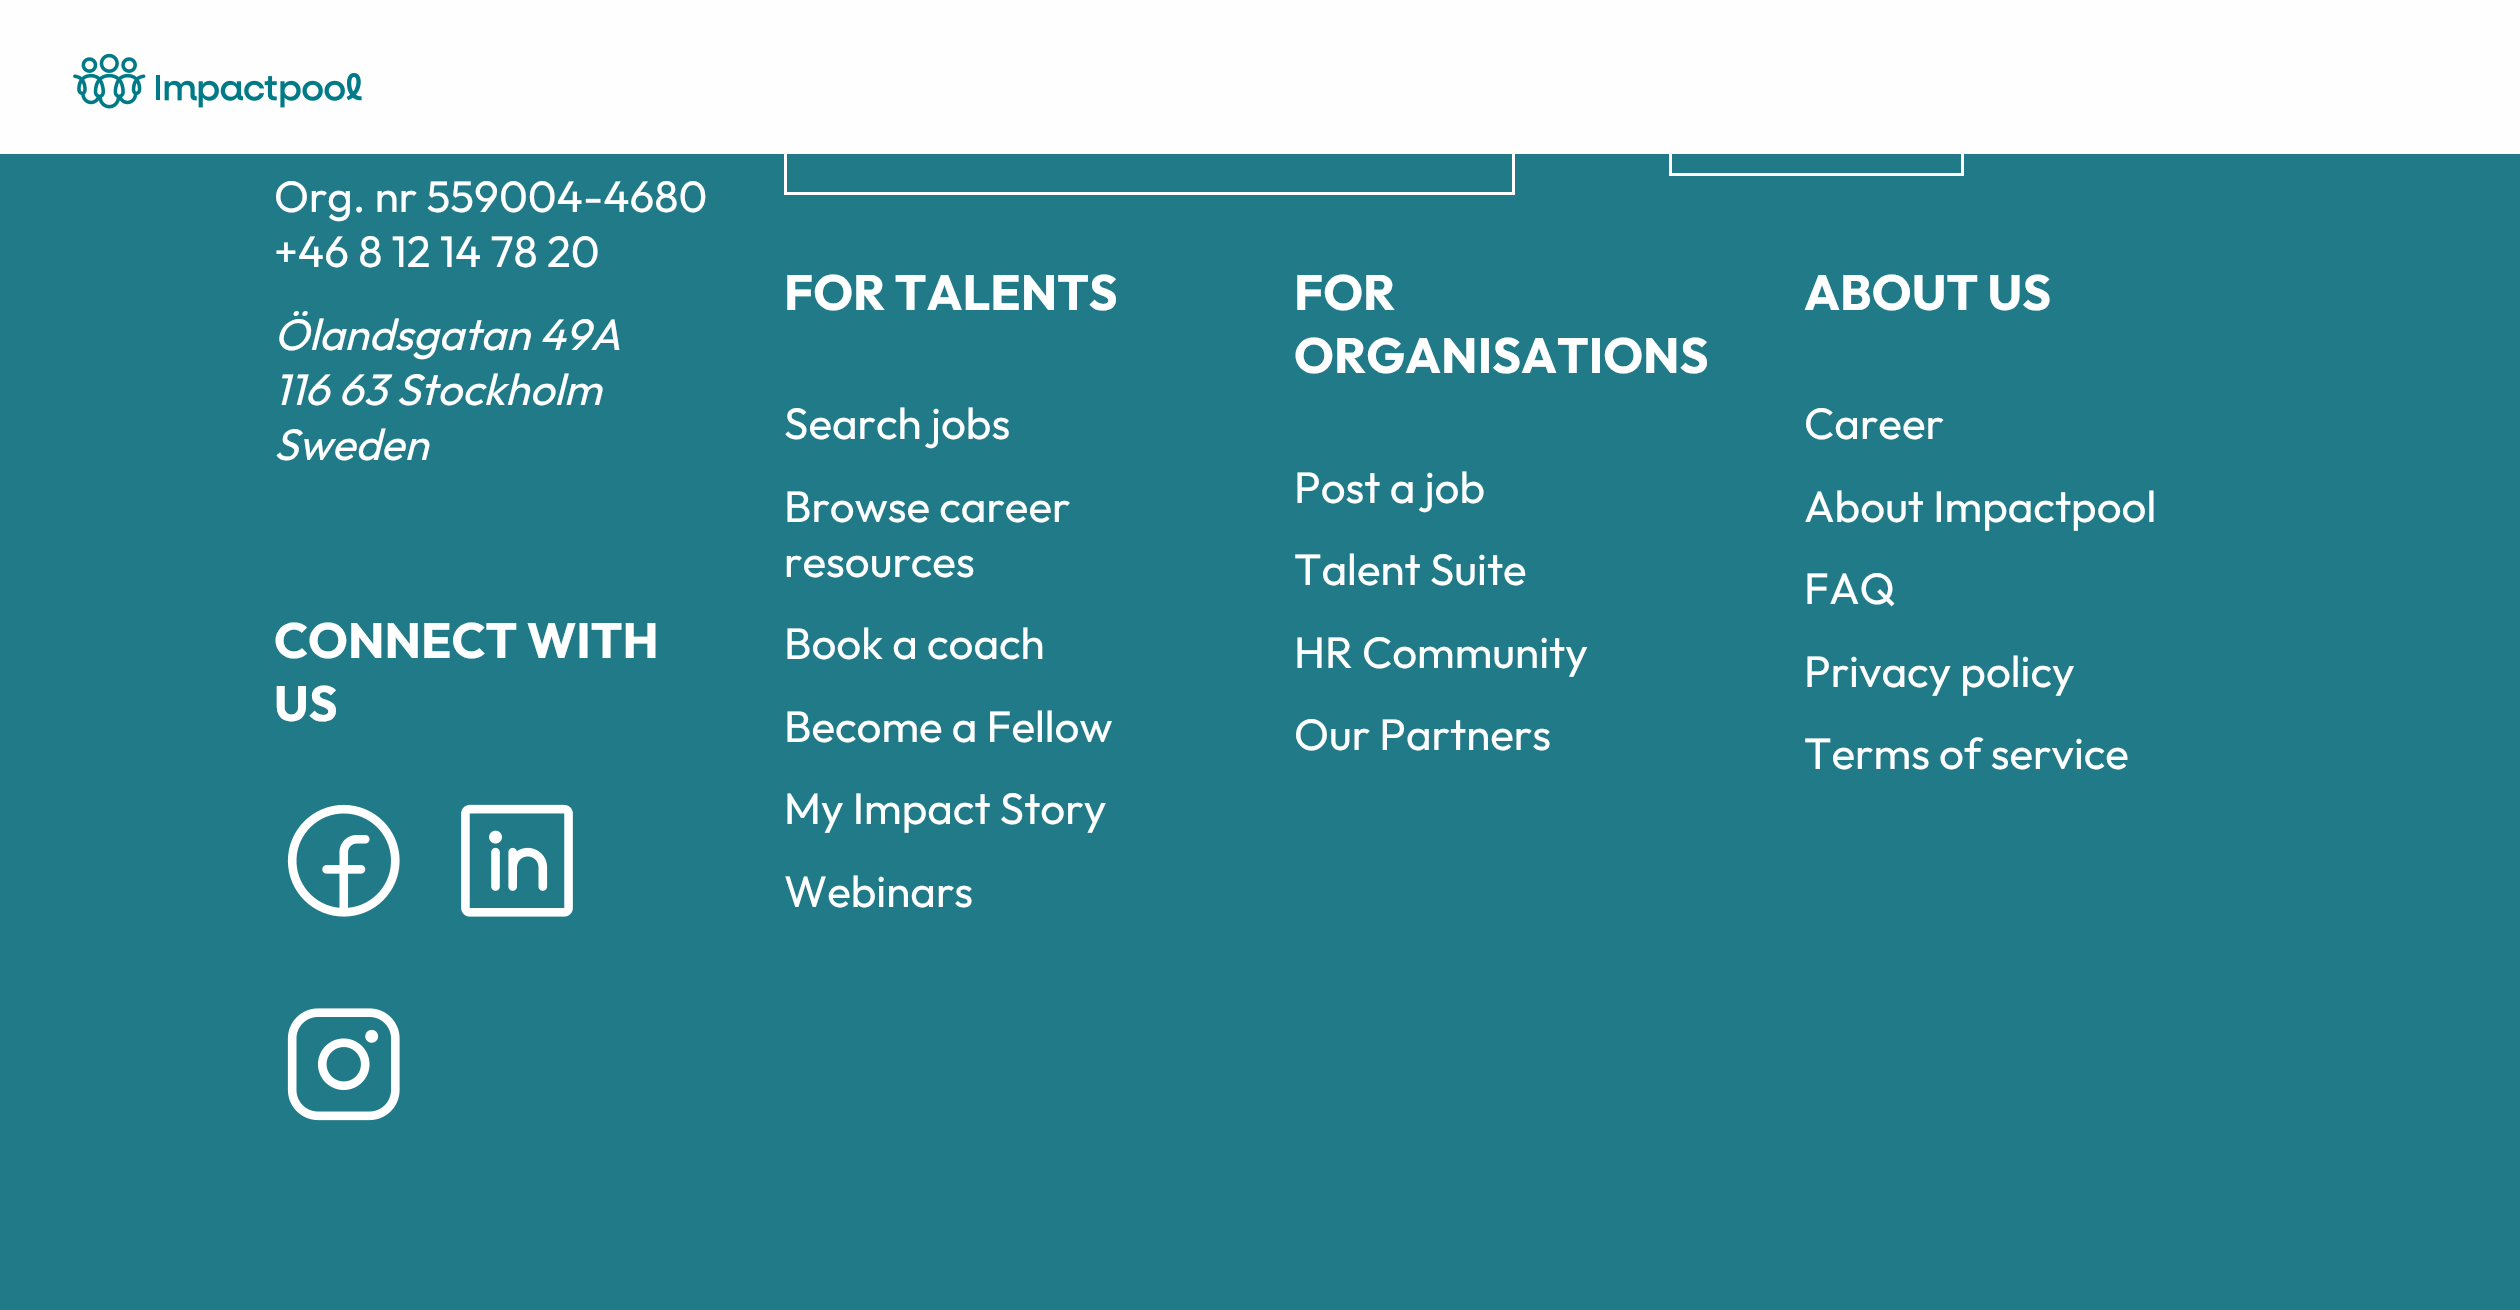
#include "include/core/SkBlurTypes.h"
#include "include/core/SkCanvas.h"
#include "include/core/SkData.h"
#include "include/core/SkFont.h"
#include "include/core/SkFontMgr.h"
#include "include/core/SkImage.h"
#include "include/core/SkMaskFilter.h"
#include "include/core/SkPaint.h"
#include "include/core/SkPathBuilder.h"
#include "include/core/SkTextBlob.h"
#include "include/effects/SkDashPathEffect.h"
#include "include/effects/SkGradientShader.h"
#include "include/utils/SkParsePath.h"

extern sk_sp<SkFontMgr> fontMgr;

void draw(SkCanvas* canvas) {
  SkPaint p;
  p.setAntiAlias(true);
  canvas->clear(SkColorSetRGB(33, 122, 135));
  p.setStyle(SkPaint::kStroke_Style);
  p.setStrokeWidth(3);
  p.setColor(SK_ColorWHITE);
  canvas->drawRect(SkRect::MakeLTRB(785.5f, 45.5f, 1513.5f, 193.5f), p);
  canvas->drawRect(SkRect::MakeLTRB(1670.5f, 62.5f, 1962.5f, 174.5f), p);
  p.setStyle(SkPaint::kFill_Style);
  p.setColor(SkColorSetRGB(254, 254, 254));
  canvas->drawRect(SkRect::MakeLTRB(0, 0, 2520, 154), p);
  canvas->drawImageRect(SkImages::DeferredFromEncodedData(SkData::MakeFromFileName("images/1.png")), SkRect::MakeLTRB(73, 53, 362, 109), SkSamplingOptions());
  canvas->drawImageRect(SkImages::DeferredFromEncodedData(SkData::MakeFromFileName("images/2.png")), SkRect::MakeLTRB(287, 804, 400, 917), SkSamplingOptions());
  canvas->drawImageRect(SkImages::DeferredFromEncodedData(SkData::MakeFromFileName("images/3.png")), SkRect::MakeLTRB(461, 804, 573, 917), SkSamplingOptions());
  canvas->drawImageRect(SkImages::DeferredFromEncodedData(SkData::MakeFromFileName("images/4.png")), SkRect::MakeLTRB(287, 1008, 400, 1121), SkSamplingOptions());
  SkFont font1(fontMgr->matchFamilyStyle("Outfit", SkFontStyle::Normal()), 44);
  font1.setSubpixel(true);
  p.setColor(SK_ColorWHITE);
  canvas->drawString("Org. nr 559004-4680", 274, 212, font1, p);
  canvas->drawString("+46 8 12 14 78 20", 274, 267, font1, p);
  SkFont font2(fontMgr->matchFamilyStyle("Outfit", SkFontStyle::Italic()), 44);
  font2.setSubpixel(true);
  canvas->drawString("Ölandsgatan 49A", 274, 350, font2, p);
  canvas->drawString("116 63 Stockholm", 274, 405, font2, p);
  canvas->drawString("Sweden", 274, 460, font2, p);
  SkFont font3(fontMgr->matchFamilyStyle("Outfit", SkFontStyle::Bold()), 49.5f);
  font3.setSubpixel(true);
  canvas->drawString("FOR TALENTS", 784, 310, font3, p);
  canvas->drawString("Search jobs", 784, 439, font1, p);
  canvas->drawString("Browse career", 784, 522, font1, p);
  canvas->drawString("resources", 784, 577, font1, p);
  canvas->drawString("Book a coach", 784, 659, font1, p);
  canvas->drawString("Become a Fellow", 784, 742, font1, p);
  canvas->drawString("My Impact Story", 784, 824, font1, p);
  canvas->drawString("Webinars", 784, 907, font1, p);
  canvas->drawString("FOR", 1294, 310, font3, p);
  canvas->drawString("ORGANISATIONS", 1294, 373, font3, p);
  canvas->drawString("Post a job", 1294, 503, font1, p);
  canvas->drawString("Talent Suite", 1294, 585, font1, p);
  canvas->drawString("HR Community", 1294, 668, font1, p);
  canvas->drawString("Our Partners", 1294, 750, font1, p);
  canvas->drawString("ABOUT US", 1804, 310, font3, p);
  canvas->drawString("Career", 1804, 439, font1, p);
  canvas->drawString("About Impactpool", 1804, 522, font1, p);
  canvas->drawString("FAQ", 1804, 604, font1, p);
  canvas->drawString("Privacy policy", 1804, 687, font1, p);
  canvas->drawString("Terms of service", 1804, 769, font1, p);
  canvas->drawString("CONNECT WITH", 274, 658, font3, p);
  canvas->drawString("US", 274, 721, font3, p);
}
